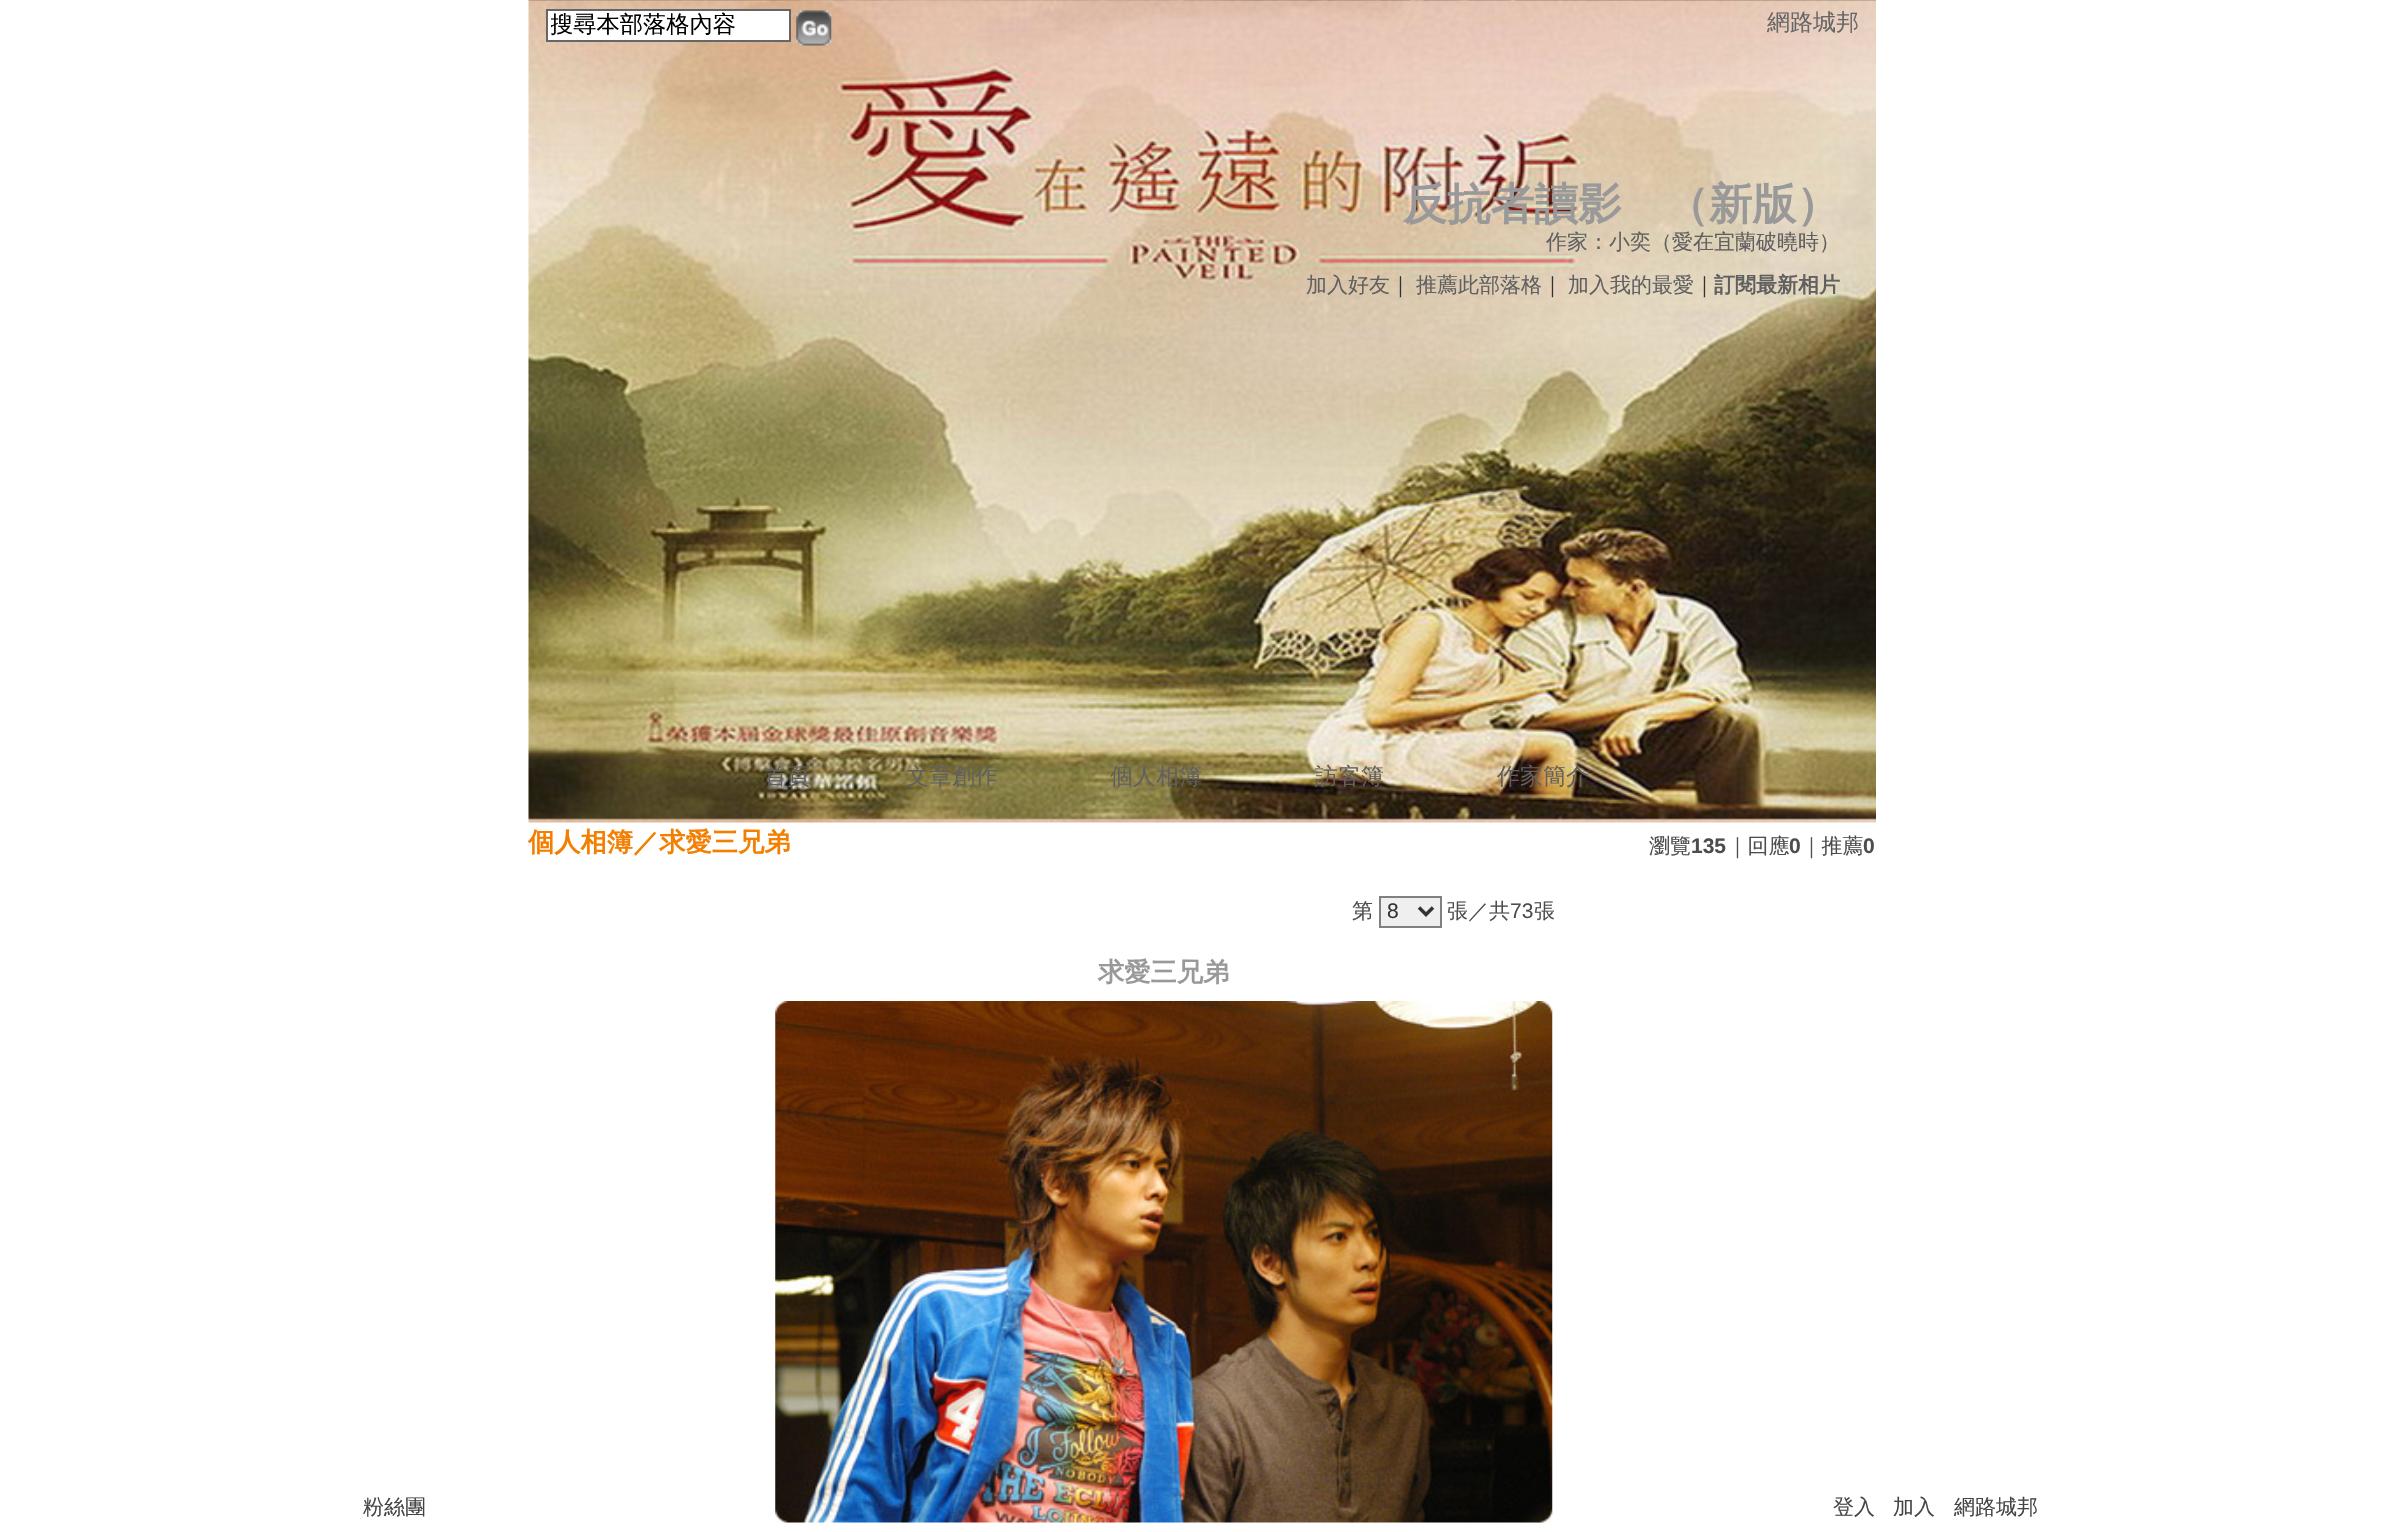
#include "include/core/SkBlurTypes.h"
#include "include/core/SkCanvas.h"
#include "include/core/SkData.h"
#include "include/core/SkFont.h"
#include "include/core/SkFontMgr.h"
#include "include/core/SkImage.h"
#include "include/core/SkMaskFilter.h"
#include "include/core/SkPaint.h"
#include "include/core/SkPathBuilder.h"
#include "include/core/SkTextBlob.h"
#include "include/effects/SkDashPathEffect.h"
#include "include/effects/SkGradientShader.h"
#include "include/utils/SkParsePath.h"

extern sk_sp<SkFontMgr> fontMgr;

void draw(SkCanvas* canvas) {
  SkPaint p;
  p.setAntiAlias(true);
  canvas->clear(SK_ColorWHITE);
  canvas->drawImageRect(SkImages::DeferredFromEncodedData(SkData::MakeFromFileName("images/1.png")), SkRect::MakeLTRB(528, 0, 1876, 823), SkSamplingOptions());
  p.setColor(SK_ColorWHITE);
  canvas->drawRect(SkRect::MakeLTRB(547, 10, 790, 41), p);
  p.setStyle(SkPaint::kStroke_Style);
  p.setStrokeWidth(2);
  p.setColor(SkColorSetRGB(102, 102, 102));
  canvas->drawRect(SkRect::MakeLTRB(547, 10, 790, 41), p);
  canvas->drawImageRect(SkImages::DeferredFromEncodedData(SkData::MakeFromFileName("images/2.png")), SkRect::MakeLTRB(796, 10, 832, 46), SkSamplingOptions());
  p.setStyle(SkPaint::kFill_Style);
  p.setColor(SkColorSetRGB(239, 239, 239));
  canvas->drawRect(SkRect::MakeLTRB(1380, 897, 1441, 927), p);
  p.setStyle(SkPaint::kStroke_Style);
  p.setColor(SkColorSetRGB(128, 128, 128));
  canvas->drawRect(SkRect::MakeLTRB(1380, 897, 1441, 927), p);
  p.setStrokeWidth(3.5f);
  p.setColor(SkColorSetRGB(51, 51, 51));
  canvas->drawPath(SkPathBuilder().moveTo(1419, 907.5f).lineTo(1426, 914.5f).lineTo(1433, 907.5f).detach(), p);
  canvas->drawImageRect(SkImages::DeferredFromEncodedData(SkData::MakeFromFileName("images/3.png")), SkRect::MakeLTRB(775, 1001, 1553, 1523), SkSamplingOptions());
  SkFont font1(fontMgr->matchFamilyStyle("WenQuanYi Zen Hei", SkFontStyle(500, SkFontStyle::kNormal_Width, SkFontStyle::kUpright_Slant)), 23);
  font1.setSubpixel(true);
  p.setStyle(SkPaint::kFill_Style);
  p.setColor(SkColorSetRGB(102, 102, 102));
  canvas->drawString("網路城邦", 1767, 30, font1, p);
  canvas->save();
  canvas->clipRect(SkRect::MakeLTRB(551, 11, 786, 40));
  SkFont font2(fontMgr->matchFamilyStyle("WenQuanYi Zen Hei", SkFontStyle(500, SkFontStyle::kNormal_Width, SkFontStyle::kUpright_Slant)), 23.25f);
  font2.setSubpixel(true);
  p.setColor(SK_ColorBLACK);
  canvas->drawString("搜尋本部落格內容", 550, 32, font2, p);
  canvas->restore();
  SkFont font3(fontMgr->matchFamilyStyle("WenQuanYi Zen Hei", SkFontStyle::Bold()), 43.75f);
  font3.setSubpixel(true);
  p.setColor(SkColorSetRGB(153, 153, 153));
  canvas->drawString("反抗者讀影", 1403, 219, font3, p);
  canvas->drawString("（新版）", 1665, 219, font3, p);
  SkFont font4(fontMgr->matchFamilyStyle("WenQuanYi Zen Hei", SkFontStyle(500, SkFontStyle::kNormal_Width, SkFontStyle::kUpright_Slant)), 21);
  font4.setSubpixel(true);
  p.setColor(SkColorSetRGB(96, 96, 96));
  canvas->drawString("作家：小奕（愛在宜蘭破曉時）", 1546, 249, font4, p);
  canvas->drawString("加入好友", 1306, 292, font4, p);
  p.setColor(SkColorSetRGB(51, 51, 51));
  canvas->drawString("｜", 1390, 292, font4, p);
  p.setColor(SkColorSetRGB(96, 96, 96));
  canvas->drawString("推薦此部落格", 1416, 292, font4, p);
  p.setColor(SkColorSetRGB(51, 51, 51));
  canvas->drawString("｜", 1542, 292, font4, p);
  p.setColor(SkColorSetRGB(96, 96, 96));
  canvas->drawString("加入我的最愛", 1568, 292, font4, p);
  p.setColor(SkColorSetRGB(51, 51, 51));
  canvas->drawString("｜", 1694, 292, font4, p);
  SkFont font5(fontMgr->matchFamilyStyle("WenQuanYi Zen Hei", SkFontStyle::Bold()), 21);
  font5.setSubpixel(true);
  p.setColor(SkColorSetRGB(96, 96, 96));
  canvas->drawString("訂閱最新相片", 1714, 292, font5, p);
  canvas->drawString("首頁", 764, 784, font1, p);
  canvas->drawString("文章創作", 906, 784, font1, p);
  canvas->drawString("個人相簿", 1110, 784, font1, p);
  canvas->drawString("訪客簿", 1315, 784, font1, p);
  canvas->drawString("作家簡介", 1497, 784, font1, p);
  SkFont font6(fontMgr->matchFamilyStyle("WenQuanYi Zen Hei", SkFontStyle::Bold()), 26.25f);
  font6.setSubpixel(true);
  p.setColor(SkColorSetRGB(244, 126, 0));
  canvas->drawString("個人相簿／求愛三兄弟", 528, 851, font6, p);
  p.setColor(SkColorSetRGB(77, 77, 77));
  canvas->drawString("瀏覽", 1649, 853, font4, p);
  SkFont font7(fontMgr->matchFamilyStyle("Liberation Sans", SkFontStyle::Bold()), 21);
  font7.setSubpixel(true);
  canvas->drawString("135", 1691, 853, font7, p);
  canvas->drawString("｜回應", 1727, 853, font4, p);
  canvas->drawString("0", 1789, 853, font7, p);
  canvas->drawString("｜推薦", 1801, 853, font4, p);
  canvas->drawString("0", 1863, 853, font7, p);
  canvas->drawString("第", 1352, 918, font4, p);
  SkFont font8(fontMgr->matchFamilyStyle("Liberation Sans", SkFontStyle::Normal()), 21);
  font8.setSubpixel(true);
  p.setColor(SkColorSetRGB(51, 51, 51));
  canvas->drawString("8", 1387, 918, font8, p);
  p.setColor(SkColorSetRGB(77, 77, 77));
  canvas->drawString("張／共", 1447, 918, font4, p);
  canvas->drawString("73", 1510, 918, font8, p);
  canvas->drawString("張", 1534, 918, font4, p);
  p.setColor(SkColorSetRGB(153, 153, 153));
  canvas->drawString("求愛三兄弟", 1098, 981, font6, p);
  p.setColor(SkColorSetRGB(68, 68, 68));
  canvas->drawString("粉絲團", 363, 1514, font4, p);
  canvas->drawString("登入", 1833, 1514, font4, p);
  canvas->drawString("加入", 1893, 1514, font4, p);
  canvas->drawString("網路城邦", 1954, 1514, font4, p);
}
